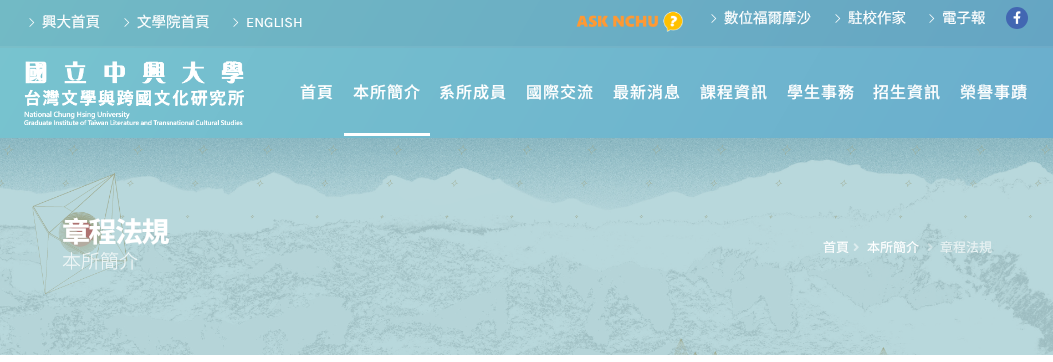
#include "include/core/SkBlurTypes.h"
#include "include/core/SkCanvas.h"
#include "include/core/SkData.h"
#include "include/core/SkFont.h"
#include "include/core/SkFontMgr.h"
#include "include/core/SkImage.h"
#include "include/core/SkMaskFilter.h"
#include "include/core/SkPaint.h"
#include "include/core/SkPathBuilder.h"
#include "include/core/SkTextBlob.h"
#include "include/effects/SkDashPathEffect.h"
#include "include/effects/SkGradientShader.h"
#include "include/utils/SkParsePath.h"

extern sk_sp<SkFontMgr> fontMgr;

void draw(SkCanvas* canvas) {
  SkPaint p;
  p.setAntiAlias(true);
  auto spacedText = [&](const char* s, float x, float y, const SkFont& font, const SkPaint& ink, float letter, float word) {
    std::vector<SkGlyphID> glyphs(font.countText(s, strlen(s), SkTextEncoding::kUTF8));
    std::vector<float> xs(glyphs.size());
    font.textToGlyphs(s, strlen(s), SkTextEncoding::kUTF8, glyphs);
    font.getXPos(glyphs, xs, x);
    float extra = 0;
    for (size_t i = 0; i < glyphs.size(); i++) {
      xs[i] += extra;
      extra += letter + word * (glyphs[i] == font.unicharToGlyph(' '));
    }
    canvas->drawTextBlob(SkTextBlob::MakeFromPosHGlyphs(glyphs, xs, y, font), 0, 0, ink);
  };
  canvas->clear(SK_ColorWHITE);
  {
    const SkColor colors[] = {SkColorSetRGB(120, 196, 207), SkColorSetRGB(106, 174, 205)};
    const float stops[] = {0, 1};
    const SkPoint ends[] = {{102, -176}, {951, 314}};
    p.setShader(SkGradientShader::MakeLinear(ends, colors, stops, 2, SkTileMode::kClamp));
    p.setAlpha(255);
  }
  canvas->drawRect(SkRect::MakeLTRB(0, 48, 1053, 138), p);
  {
    const SkColor colors[] = {SkColorSetRGB(114, 186, 197), SkColorSetRGB(101, 165, 195)};
    const float stops[] = {0, 1};
    const SkPoint ends[] = {{122, -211}, {931, 257}};
    p.setShader(SkGradientShader::MakeLinear(ends, colors, stops, 2, SkTileMode::kClamp));
    p.setAlpha(255);
  }
  canvas->drawRect(SkRect::MakeLTRB(0, 0, 1053, 46), p);
  {
    const SkColor colors[] = {SkColorSetRGB(122, 190, 200), SkColorSetRGB(110, 170, 199)};
    const float stops[] = {0, 1};
    const SkPoint ends[] = {{122, -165}, {931, 303}};
    p.setShader(SkGradientShader::MakeLinear(ends, colors, stops, 2, SkTileMode::kClamp));
    p.setAlpha(255);
  }
  canvas->drawRect(SkRect::MakeLTRB(0, 46, 1053, 48), p);
  canvas->drawImageRect(SkImages::DeferredFromEncodedData(SkData::MakeFromFileName("images/1.png")), SkRect::MakeLTRB(29, 18, 35, 27), SkSamplingOptions());
  canvas->drawImageRect(SkImages::DeferredFromEncodedData(SkData::MakeFromFileName("images/2.png")), SkRect::MakeLTRB(124, 18, 130, 27), SkSamplingOptions());
  canvas->drawImageRect(SkImages::DeferredFromEncodedData(SkData::MakeFromFileName("images/3.png")), SkRect::MakeLTRB(233, 18, 239, 27), SkSamplingOptions());
  canvas->drawImageRect(SkImages::DeferredFromEncodedData(SkData::MakeFromFileName("images/4.png")), SkRect::MakeLTRB(576, 11, 683, 32), SkSamplingOptions());
  canvas->drawImageRect(SkImages::DeferredFromEncodedData(SkData::MakeFromFileName("images/5.png")), SkRect::MakeLTRB(711, 14, 717, 23), SkSamplingOptions());
  canvas->drawImageRect(SkImages::DeferredFromEncodedData(SkData::MakeFromFileName("images/6.png")), SkRect::MakeLTRB(835, 14, 841, 23), SkSamplingOptions());
  canvas->drawImageRect(SkImages::DeferredFromEncodedData(SkData::MakeFromFileName("images/7.png")), SkRect::MakeLTRB(929, 14, 935, 23), SkSamplingOptions());
  p.setShader(nullptr);
  p.setColor(SkColorSetRGB(66, 103, 178));
  canvas->drawCircle(1017, 18, 11, p);
  canvas->drawImageRect(SkImages::DeferredFromEncodedData(SkData::MakeFromFileName("images/8.png")), SkRect::MakeLTRB(1013, 11, 1021, 24), SkSamplingOptions());
  canvas->drawImageRect(SkImages::DeferredFromEncodedData(SkData::MakeFromFileName("images/9.png")), SkRect::MakeLTRB(24, 61, 244, 125), SkSamplingOptions());
  p.setColor(SK_ColorWHITE);
  canvas->drawRect(SkRect::MakeLTRB(344, 133, 430, 136), p);
  canvas->drawImageRect(SkImages::DeferredFromEncodedData(SkData::MakeFromFileName("images/10.png")), SkRect::MakeLTRB(0, 138, 1053, 355), SkSamplingOptions());
  canvas->drawImageRect(SkImages::DeferredFromEncodedData(SkData::MakeFromFileName("images/11.png")), SkRect::MakeLTRB(853, 243, 859, 251), SkSamplingOptions());
  canvas->drawImageRect(SkImages::DeferredFromEncodedData(SkData::MakeFromFileName("images/12.png")), SkRect::MakeLTRB(927, 243, 933, 251), SkSamplingOptions());
  SkFont font1(fontMgr->matchFamilyStyle("Noto Sans TC", SkFontStyle::Normal()), 14.5f);
  font1.setSubpixel(true);
  canvas->drawString("興大首頁", 42, 27, font1, p);
  canvas->drawString("文學院首頁", 137, 27, font1, p);
  SkFont font2(fontMgr->matchFamilyStyle("Karla", SkFontStyle::Normal()), 14.5f);
  font2.setSubpixel(true);
  canvas->drawString("ENGLISH", 246, 27, font2, p);
  canvas->drawString("數位福爾摩沙", 724, 23, font1, p);
  canvas->drawString("駐校作家", 848, 23, font1, p);
  canvas->drawString("電子報", 942, 23, font1, p);
  SkFont font3(fontMgr->matchFamilyStyle("Noto Sans TC", SkFontStyle(500, SkFontStyle::kNormal_Width, SkFontStyle::kUpright_Slant)), 16);
  font3.setSubpixel(true);
  spacedText("首頁", 300, 98, font3, p, 1, 0);
  spacedText("本所簡介", 353, 98, font3, p, 1, 0);
  spacedText("系所成員", 439, 98, font3, p, 1, 0);
  spacedText("國際交流", 526, 98, font3, p, 1, 0);
  spacedText("最新消息", 613, 98, font3, p, 1, 0);
  spacedText("課程資訊", 700, 98, font3, p, 1, 0);
  spacedText("學生事務", 787, 98, font3, p, 1, 0);
  spacedText("招生資訊", 873, 98, font3, p, 1, 0);
  spacedText("榮譽事蹟", 960, 98, font3, p, 1, 0);
  SkFont font4(fontMgr->matchFamilyStyle("Noto Sans TC", SkFontStyle::Bold()), 28);
  font4.setSubpixel(true);
  spacedText("章程法規", 62, 242, font4, p, -1.5f, 0);
  SkFont font5(fontMgr->matchFamilyStyle("Noto Sans TC", SkFontStyle(300, SkFontStyle::kNormal_Width, SkFontStyle::kUpright_Slant)), 19);
  font5.setSubpixel(true);
  p.setColor(SkColorSetRGB(240, 247, 247));
  canvas->drawString("本所簡介", 62, 268, font5, p);
  SkFont font6(fontMgr->matchFamilyStyle("Noto Sans TC", SkFontStyle::Normal()), 13);
  font6.setSubpixel(true);
  p.setColor(SK_ColorWHITE);
  canvas->drawString("首頁", 823, 252, font6, p);
  canvas->drawString("本所簡介", 867, 252, font6, p);
  p.setColor(SkColorSetRGB(232, 242, 243));
  canvas->drawString("章程法規", 940, 252, font6, p);
}
